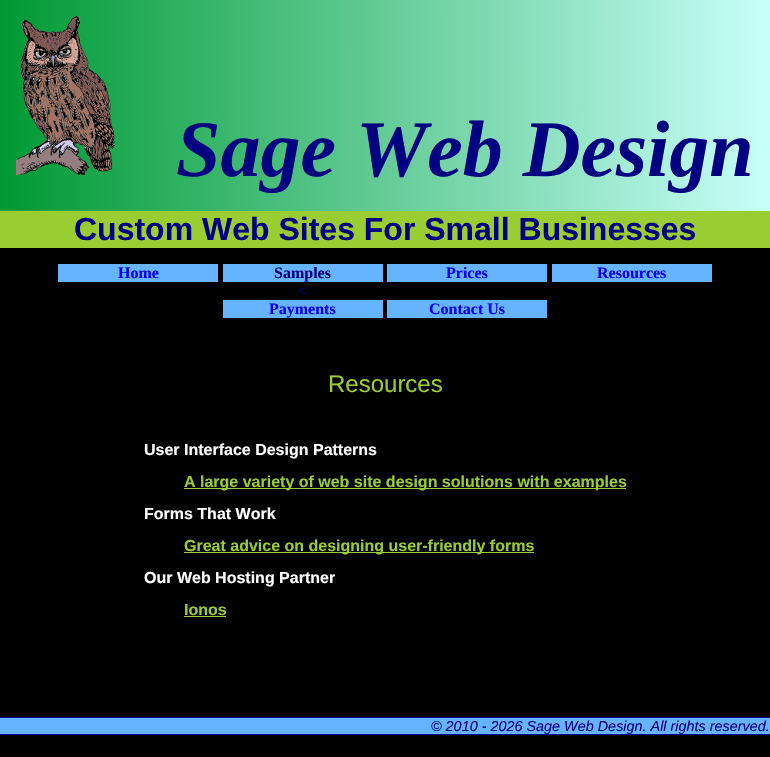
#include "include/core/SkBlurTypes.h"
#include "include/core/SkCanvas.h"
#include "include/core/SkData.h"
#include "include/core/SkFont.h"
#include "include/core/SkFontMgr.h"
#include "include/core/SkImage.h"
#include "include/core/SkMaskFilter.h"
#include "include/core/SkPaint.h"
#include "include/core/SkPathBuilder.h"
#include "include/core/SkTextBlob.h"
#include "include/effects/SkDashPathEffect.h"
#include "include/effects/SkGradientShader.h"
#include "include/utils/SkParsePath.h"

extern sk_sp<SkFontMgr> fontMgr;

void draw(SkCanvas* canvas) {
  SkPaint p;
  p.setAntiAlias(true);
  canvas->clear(SK_ColorBLACK);
  {
    const SkColor colors[] = {SkColorSetRGB(0, 153, 51), SkColorSetRGB(200, 255, 250)};
    const float stops[] = {0, 1};
    const SkPoint ends[] = {{0, 106}, {770, 105}};
    p.setShader(SkGradientShader::MakeLinear(ends, colors, stops, 2, SkTileMode::kClamp));
    p.setAlpha(255);
  }
  canvas->drawRect(SkRect::MakeLTRB(0, 0, 770, 211), p);
  canvas->drawImageRect(SkImages::DeferredFromEncodedData(SkData::MakeFromFileName("images/1.png")), SkRect::MakeLTRB(16, 15, 115, 175), SkSamplingOptions());
  p.setShader(nullptr);
  p.setColor(SkColorSetRGB(154, 205, 50));
  canvas->drawRect(SkRect::MakeLTRB(0, 211, 770, 248), p);
  p.setColor(SkColorSetRGB(102, 179, 255));
  canvas->drawRect(SkRect::MakeLTRB(58, 264, 218, 282), p);
  canvas->drawRect(SkRect::MakeLTRB(223, 264, 383, 282), p);
  canvas->drawRect(SkRect::MakeLTRB(387, 264, 547, 282), p);
  canvas->drawRect(SkRect::MakeLTRB(552, 264, 712, 282), p);
  canvas->drawRect(SkRect::MakeLTRB(223, 300, 383, 318), p);
  canvas->drawRect(SkRect::MakeLTRB(387, 300, 547, 318), p);
  p.setColor(SkColorSetRGB(154, 205, 50));
  canvas->drawRect(SkRect::MakeLTRB(184, 488, 626, 489), p);
  canvas->drawRect(SkRect::MakeLTRB(184, 552, 534, 553), p);
  canvas->drawRect(SkRect::MakeLTRB(184, 616, 226, 617), p);
  p.setColor(SkColorSetRGB(102, 179, 255));
  canvas->drawRect(SkRect::MakeLTRB(0, 718, 770, 734), p);
  p.setColor(SkColorSetRGB(0, 0, 128));
  canvas->drawRect(SkRect::MakeLTRB(0, 717, 770, 718), p);
  canvas->drawRect(SkRect::MakeLTRB(0, 734, 770, 735), p);
  SkFont font1(fontMgr->matchFamilyStyle("Liberation Serif", SkFontStyle::BoldItalic()), 80);
  font1.setSubpixel(true);
  canvas->drawString("Sage Web Design", 176, 176, font1, p);
  SkFont font2(fontMgr->matchFamilyStyle("Liberation Sans", SkFontStyle::Bold()), 32);
  font2.setSubpixel(true);
  canvas->drawString("Custom Web Sites For Small Businesses", 74, 240, font2, p);
  SkFont font3(fontMgr->matchFamilyStyle("Liberation Serif", SkFontStyle::Bold()), 16);
  font3.setSubpixel(true);
  p.setColor(SkColorSetRGB(0, 0, 238));
  canvas->drawString("Home", 118, 278, font3, p);
  p.setColor(SkColorSetRGB(0, 0, 128));
  canvas->drawString("Samples", 274, 278, font3, p);
  canvas->drawString("<", 298, 296, font3, p);
  p.setColor(SkColorSetRGB(0, 0, 238));
  canvas->drawString("Prices", 446, 278, font3, p);
  canvas->drawString("Resources", 597, 278, font3, p);
  canvas->drawString("Payments", 269, 314, font3, p);
  canvas->drawString("Contact Us", 429, 314, font3, p);
  SkFont font4(fontMgr->matchFamilyStyle("Liberation Sans", SkFontStyle::Normal()), 24);
  font4.setSubpixel(true);
  p.setColor(SkColorSetRGB(154, 205, 50));
  canvas->drawString("Resources", 328, 392, font4, p);
  SkFont font5(fontMgr->matchFamilyStyle("Liberation Sans", SkFontStyle::Bold()), 16);
  font5.setSubpixel(true);
  p.setColor(SK_ColorWHITE);
  canvas->drawString("User Interface Design Patterns", 144, 455, font5, p);
  p.setColor(SkColorSetRGB(154, 205, 50));
  canvas->drawString("A large variety of web site design solutions with examples", 184, 487, font5, p);
  p.setColor(SK_ColorWHITE);
  canvas->drawString("Forms That Work", 144, 519, font5, p);
  p.setColor(SkColorSetRGB(154, 205, 50));
  canvas->drawString("Great advice on designing user-friendly forms", 184, 551, font5, p);
  p.setColor(SK_ColorWHITE);
  canvas->drawString("Our Web Hosting Partner", 144, 583, font5, p);
  p.setColor(SkColorSetRGB(154, 205, 50));
  canvas->drawString("Ionos", 184, 615, font5, p);
  SkFont font6(fontMgr->matchFamilyStyle("Liberation Sans", SkFontStyle::Italic()), 14.4f);
  font6.setSubpixel(true);
  p.setColor(SkColorSetRGB(0, 0, 128));
  canvas->drawString("© 2010 - 2026 Sage Web Design. All rights reserved.", 431, 731, font6, p);
}
